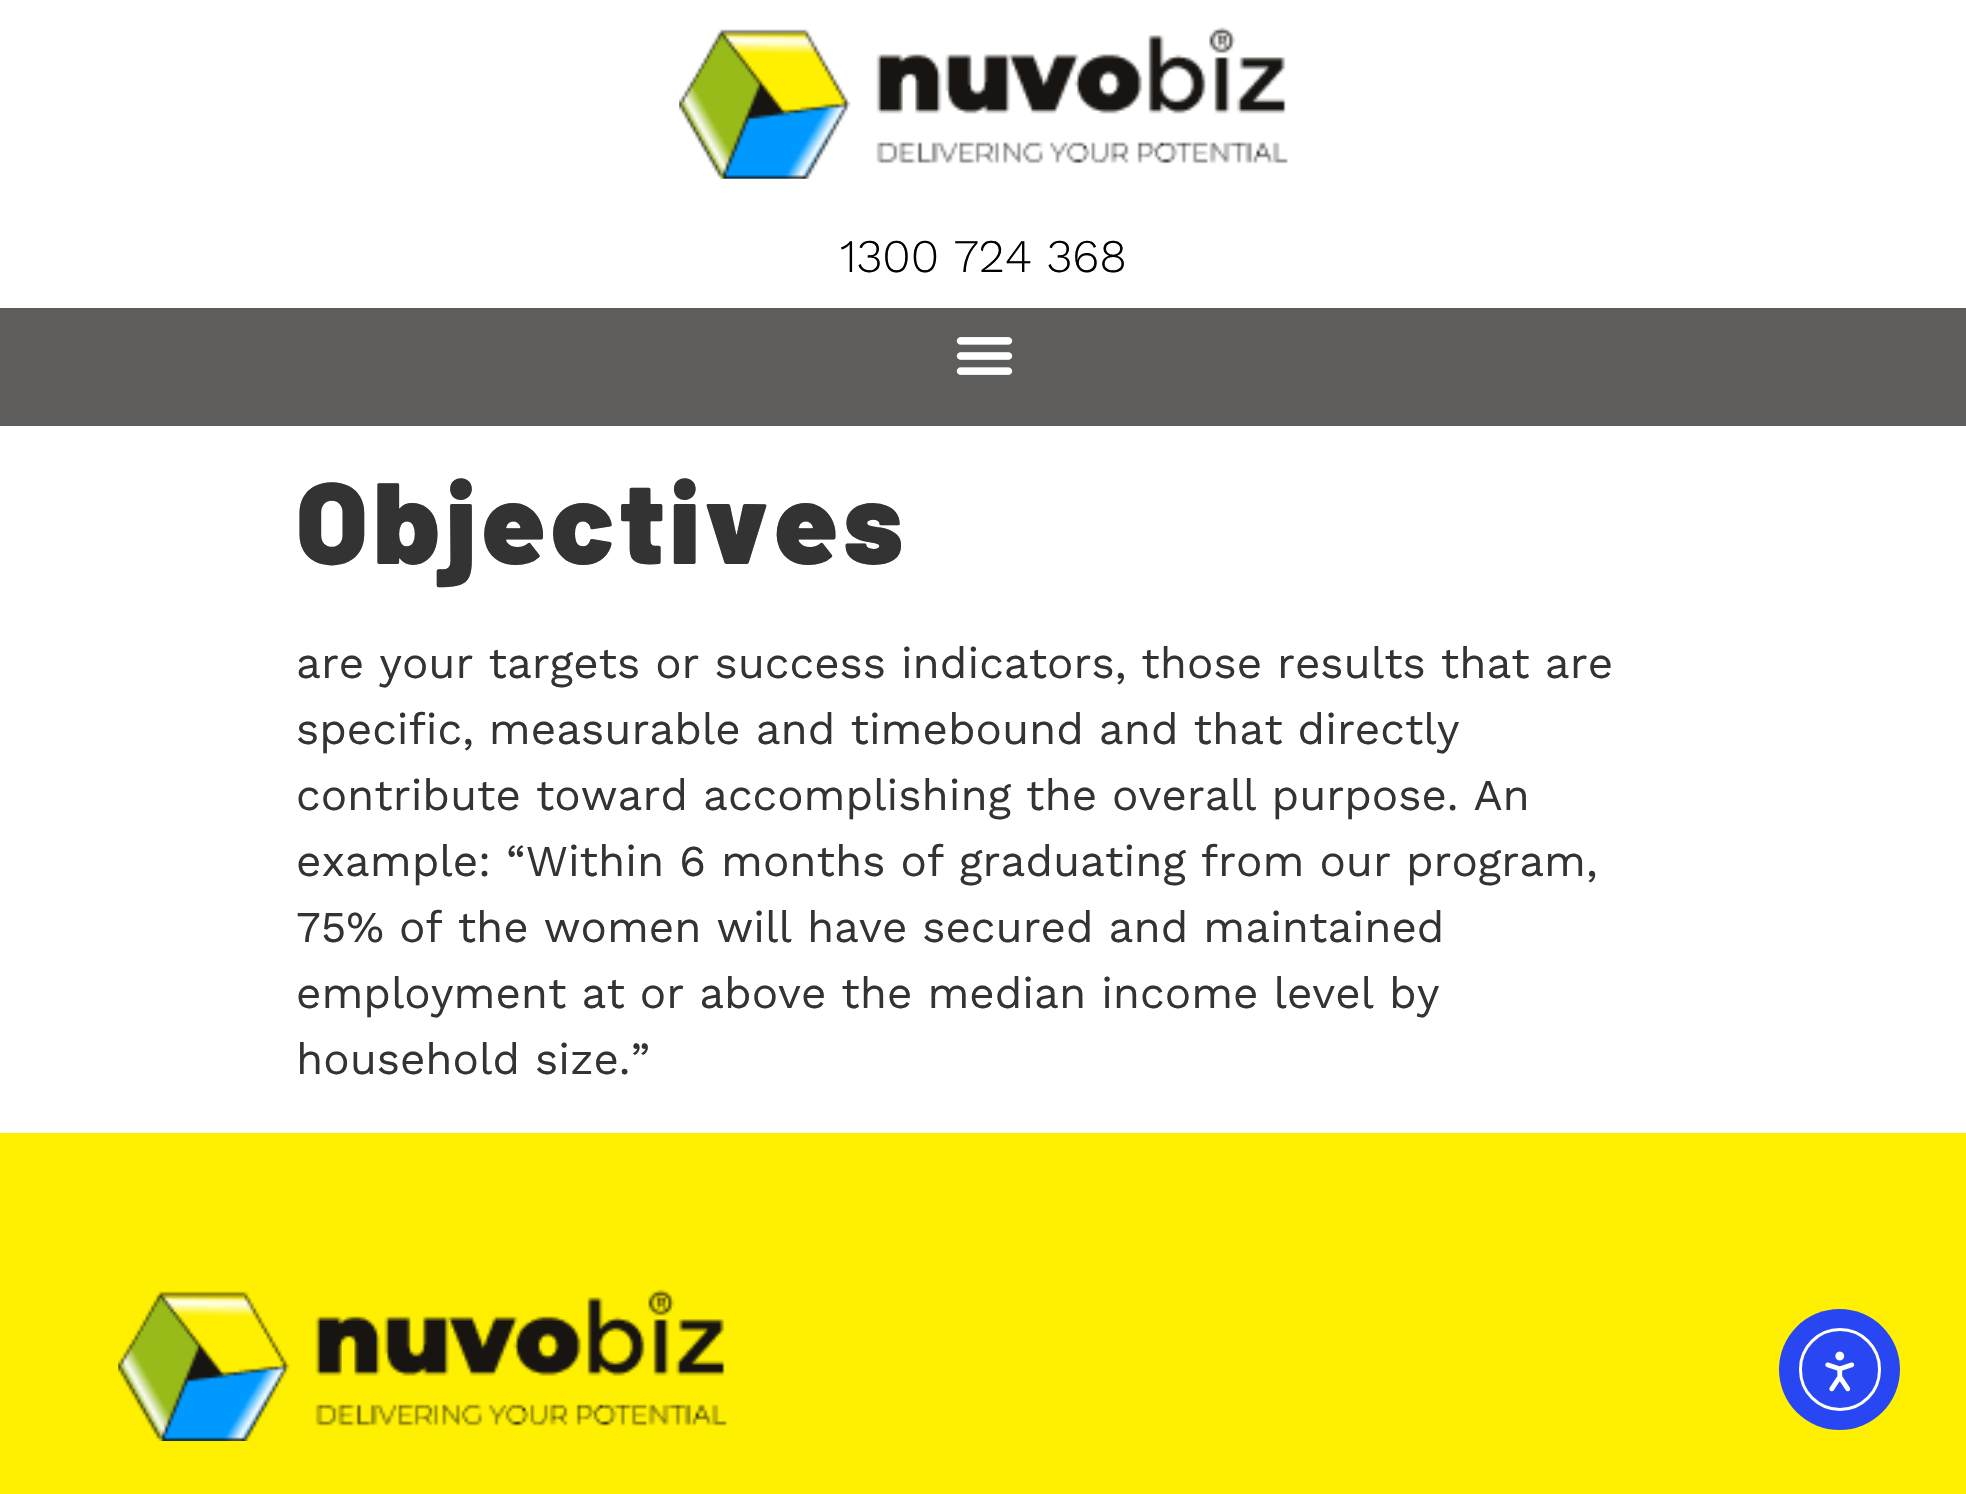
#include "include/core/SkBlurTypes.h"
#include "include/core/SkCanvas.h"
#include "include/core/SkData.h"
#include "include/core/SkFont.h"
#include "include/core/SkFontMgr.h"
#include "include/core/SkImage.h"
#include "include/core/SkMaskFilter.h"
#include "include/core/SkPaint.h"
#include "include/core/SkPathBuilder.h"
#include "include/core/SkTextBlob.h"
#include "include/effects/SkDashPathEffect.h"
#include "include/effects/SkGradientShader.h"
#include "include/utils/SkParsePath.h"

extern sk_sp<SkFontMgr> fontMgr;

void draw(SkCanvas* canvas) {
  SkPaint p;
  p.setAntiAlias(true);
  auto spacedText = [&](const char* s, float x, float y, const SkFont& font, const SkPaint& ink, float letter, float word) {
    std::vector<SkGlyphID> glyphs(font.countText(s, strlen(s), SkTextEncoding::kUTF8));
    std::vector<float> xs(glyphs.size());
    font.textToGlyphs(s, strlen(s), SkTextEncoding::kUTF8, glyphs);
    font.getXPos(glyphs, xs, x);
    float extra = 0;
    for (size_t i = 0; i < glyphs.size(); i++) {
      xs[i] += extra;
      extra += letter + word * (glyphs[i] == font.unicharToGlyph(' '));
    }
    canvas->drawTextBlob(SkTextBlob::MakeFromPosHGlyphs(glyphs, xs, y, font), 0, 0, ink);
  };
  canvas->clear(SK_ColorWHITE);
  canvas->drawImageRect(SkImages::DeferredFromEncodedData(SkData::MakeFromFileName("images/1.png")), SkRect::MakeLTRB(679, 27, 1288, 179), SkSamplingOptions());
  p.setColor(SkColorSetRGB(95, 92, 92));
  canvas->drawRect(SkRect::MakeLTRB(0, 308, 1966, 426), p);
  canvas->drawImageRect(SkImages::DeferredFromEncodedData(SkData::MakeFromFileName("images/2.png")), SkRect::MakeLTRB(956, 337, 1013, 375), SkSamplingOptions());
  p.setColor(SkColorSetRGB(254, 240, 0));
  canvas->drawRect(SkRect::MakeLTRB(0, 1133, 1966, 1494), p);
  canvas->drawImageRect(SkImages::DeferredFromEncodedData(SkData::MakeFromFileName("images/3.png")), SkRect::MakeLTRB(118, 1289, 727, 1441), SkSamplingOptions());
  p.setColor(SkColorSetRGB(40, 71, 243));
  canvas->drawCircle(1839.5f, 1369.5f, 60.5f, p);
  p.setStyle(SkPaint::kStroke_Style);
  p.setStrokeWidth(3);
  p.setColor(SK_ColorWHITE);
  canvas->drawRoundRect(SkRect::MakeLTRB(1800.5f, 1329.5f, 1879.5f, 1409.5f), 39.5f, 39.5f, p);
  canvas->drawImageRect(SkImages::DeferredFromEncodedData(SkData::MakeFromFileName("images/4.png")), SkRect::MakeLTRB(1825, 1351, 1855, 1392), SkSamplingOptions());
  SkFont font1(fontMgr->matchFamilyStyle("Work Sans", SkFontStyle(300, SkFontStyle::kNormal_Width, SkFontStyle::kUpright_Slant)), 46.75f);
  font1.setSubpixel(true);
  p.setStyle(SkPaint::kFill_Style);
  p.setColor(SK_ColorBLACK);
  canvas->drawString("1300 724 368", 840, 272, font1, p);
  SkFont font2(fontMgr->matchFamilyStyle("Barlow", SkFontStyle(900, SkFontStyle::kNormal_Width, SkFontStyle::kUpright_Slant)), 115.5f);
  font2.setSubpixel(true);
  p.setColor(SkColorSetRGB(51, 51, 51));
  spacedText("Objectives", 296, 564, font2, p, 5.5f, 0);
  SkFont font3(fontMgr->matchFamilyStyle("Work Sans", SkFontStyle::Normal()), 44);
  font3.setSubpixel(true);
  canvas->drawString("are your targets or success indicators, those results that are", 296, 678, font3, p);
  canvas->drawString("specific, measurable and timebound and that directly", 296, 744, font3, p);
  canvas->drawString("contribute toward accomplishing the overall purpose. An", 296, 810, font3, p);
  canvas->drawString("example: “Within 6 months of graduating from our program,", 296, 876, font3, p);
  canvas->drawString("75% of the women will have secured and maintained", 296, 942, font3, p);
  canvas->drawString("employment at or above the median income level by", 296, 1008, font3, p);
  canvas->drawString("household size.”", 296, 1074, font3, p);
}
